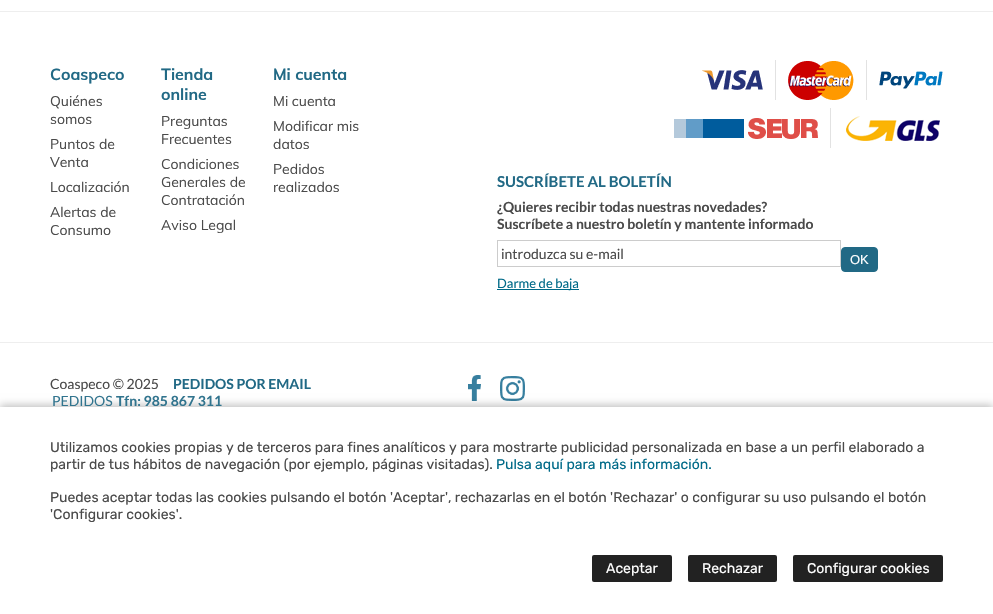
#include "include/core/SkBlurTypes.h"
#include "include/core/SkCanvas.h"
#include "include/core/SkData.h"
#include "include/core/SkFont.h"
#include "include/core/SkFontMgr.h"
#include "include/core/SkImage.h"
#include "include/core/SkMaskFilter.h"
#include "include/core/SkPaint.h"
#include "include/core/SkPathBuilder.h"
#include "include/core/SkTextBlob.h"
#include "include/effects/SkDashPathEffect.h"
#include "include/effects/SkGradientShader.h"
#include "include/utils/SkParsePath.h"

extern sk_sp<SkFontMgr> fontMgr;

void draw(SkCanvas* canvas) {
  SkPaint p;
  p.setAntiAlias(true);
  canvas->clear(SK_ColorWHITE);
  p.setColor(SkColorSetRGB(238, 238, 238));
  canvas->drawRect(SkRect::MakeLTRB(0, 11, 993, 12), p);
  canvas->drawImageRect(SkImages::DeferredFromEncodedData(SkData::MakeFromFileName("images/1.png")), SkRect::MakeLTRB(702, 70, 763, 90), SkSamplingOptions());
  p.setColor(SkColorSetRGB(226, 226, 226));
  canvas->drawRect(SkRect::MakeLTRB(775, 60, 776, 100), p);
  canvas->drawImageRect(SkImages::DeferredFromEncodedData(SkData::MakeFromFileName("images/2.png")), SkRect::MakeLTRB(788, 61, 854, 100), SkSamplingOptions());
  canvas->drawRect(SkRect::MakeLTRB(866, 60, 867, 100), p);
  canvas->drawImageRect(SkImages::DeferredFromEncodedData(SkData::MakeFromFileName("images/3.png")), SkRect::MakeLTRB(879, 71, 943, 89), SkSamplingOptions());
  canvas->drawImageRect(SkImages::DeferredFromEncodedData(SkData::MakeFromFileName("images/4.png")), SkRect::MakeLTRB(674, 118, 818, 139), SkSamplingOptions());
  canvas->drawRect(SkRect::MakeLTRB(830, 108, 831, 148), p);
  canvas->drawImageRect(SkImages::DeferredFromEncodedData(SkData::MakeFromFileName("images/5.png")), SkRect::MakeLTRB(846, 116, 940, 141), SkSamplingOptions());
  p.setStyle(SkPaint::kStroke_Style);
  p.setStrokeWidth(1);
  p.setColor(SkColorSetRGB(204, 204, 204));
  canvas->drawRect(SkRect::MakeLTRB(497.5f, 240.5f, 840.5f, 266.5f), p);
  p.setStyle(SkPaint::kFill_Style);
  p.setColor(SkColorSetRGB(33, 105, 133));
  canvas->drawRoundRect(SkRect::MakeLTRB(841.5f, 247.5f, 877.5f, 271.5f), 3.5f, 3.5f, p);
  p.setStyle(SkPaint::kStroke_Style);
  canvas->drawRoundRect(SkRect::MakeLTRB(841.5f, 247.5f, 877.5f, 271.5f), 3.5f, 3.5f, p);
  p.setStyle(SkPaint::kFill_Style);
  p.setColor(SkColorSetRGB(0, 106, 136));
  canvas->drawRect(SkRect::MakeLTRB(497, 289, 579, 290), p);
  p.setColor(SkColorSetRGB(238, 238, 238));
  canvas->drawRect(SkRect::MakeLTRB(0, 342, 993, 343), p);
  canvas->drawImageRect(SkImages::DeferredFromEncodedData(SkData::MakeFromFileName("images/6.png")), SkRect::MakeLTRB(468, 375, 481, 401), SkSamplingOptions());
  canvas->drawImageRect(SkImages::DeferredFromEncodedData(SkData::MakeFromFileName("images/7.png")), SkRect::MakeLTRB(500, 376, 525, 401), SkSamplingOptions());
  p.setColor(SkColorSetARGB(64, 0, 0, 0));
  p.setMaskFilter(SkMaskFilter::MakeBlur(kNormal_SkBlurStyle, 4));
  canvas->drawRect(SkRect::MakeLTRB(0, 405, 993, 612), p);
  p.setMaskFilter(nullptr);
  p.setColor(SK_ColorWHITE);
  canvas->drawRect(SkRect::MakeLTRB(0, 407, 993, 614), p);
  p.setColor(SkColorSetRGB(34, 34, 34));
  canvas->drawRoundRect(SkRect::MakeLTRB(592, 555, 672, 582), 2, 2, p);
  canvas->drawRoundRect(SkRect::MakeLTRB(688, 555, 777, 582), 2, 2, p);
  canvas->drawRoundRect(SkRect::MakeLTRB(793, 555, 943, 582), 2, 2, p);
  SkFont font1(fontMgr->matchFamilyStyle("Muli", SkFontStyle::Bold()), 16);
  font1.setSubpixel(true);
  p.setColor(SkColorSetRGB(33, 105, 133));
  canvas->drawString("Coaspeco", 50, 80, font1, p);
  SkFont font2(fontMgr->matchFamilyStyle("Muli", SkFontStyle::Normal()), 14);
  font2.setSubpixel(true);
  p.setColor(SkColorSetRGB(74, 74, 74));
  canvas->drawString("Quiénes", 50, 106, font2, p);
  canvas->drawString("somos", 50, 124, font2, p);
  canvas->drawString("Puntos de", 50, 149, font2, p);
  canvas->drawString("Venta", 50, 167, font2, p);
  canvas->drawString("Localización", 50, 192, font2, p);
  canvas->drawString("Alertas de", 50, 217, font2, p);
  canvas->drawString("Consumo", 50, 235, font2, p);
  p.setColor(SkColorSetRGB(33, 105, 133));
  canvas->drawString("Tienda", 161, 80, font1, p);
  canvas->drawString("online", 161, 100, font1, p);
  p.setColor(SkColorSetRGB(74, 74, 74));
  canvas->drawString("Preguntas", 161, 126, font2, p);
  canvas->drawString("Frecuentes", 161, 144, font2, p);
  canvas->drawString("Condiciones", 161, 169, font2, p);
  canvas->drawString("Generales de", 161, 187, font2, p);
  canvas->drawString("Contratación", 161, 205, font2, p);
  canvas->drawString("Aviso Legal", 161, 230, font2, p);
  p.setColor(SkColorSetRGB(33, 105, 133));
  canvas->drawString("Mi cuenta", 273, 80, font1, p);
  p.setColor(SkColorSetRGB(74, 74, 74));
  canvas->drawString("Mi cuenta", 273, 106, font2, p);
  canvas->drawString("Modificar mis", 273, 131, font2, p);
  canvas->drawString("datos", 273, 149, font2, p);
  canvas->drawString("Pedidos", 273, 174, font2, p);
  canvas->drawString("realizados", 273, 192, font2, p);
  SkFont font3(fontMgr->matchFamilyStyle("Lato", SkFontStyle::Bold()), 15);
  font3.setSubpixel(true);
  p.setColor(SkColorSetRGB(33, 105, 133));
  canvas->drawString("SUSCRÍBETE AL BOLETÍN", 497, 187, font3, p);
  SkFont font4(fontMgr->matchFamilyStyle("Lato", SkFontStyle::Bold()), 14);
  font4.setSubpixel(true);
  p.setColor(SkColorSetRGB(74, 74, 74));
  canvas->drawString("¿Quieres recibir todas nuestras novedades?", 497, 212, font4, p);
  canvas->drawString("Suscríbete a nuestro boletín y mantente informado", 497, 229, font4, p);
  SkFont font5(fontMgr->matchFamilyStyle("Lato", SkFontStyle::Normal()), 14);
  font5.setSubpixel(true);
  canvas->drawString("introduzca su e-mail", 501, 259, font5, p);
  SkFont font6(fontMgr->matchFamilyStyle("Liberation Sans", SkFontStyle::Normal()), 13);
  font6.setSubpixel(true);
  p.setColor(SK_ColorWHITE);
  canvas->drawString("OK", 850, 264, font6, p);
  SkFont font7(fontMgr->matchFamilyStyle("Lato", SkFontStyle::Normal()), 13);
  font7.setSubpixel(true);
  p.setColor(SkColorSetRGB(0, 106, 136));
  canvas->drawString("Darme de baja", 497, 288, font7, p);
  p.setColor(SkColorSetRGB(74, 74, 74));
  canvas->drawString("Coaspeco © 2025", 50, 389, font5, p);
  p.setColor(SkColorSetRGB(33, 105, 133));
  canvas->drawString("PEDIDOS POR EMAIL", 173, 389, font4, p);
  p.setColor(SkColorSetRGB(49, 116, 142));
  canvas->drawString("PEDIDOS", 52, 406, font5, p);
  canvas->drawString("Tfn: 985 867 311", 116, 406, font4, p);
  SkFont font8(fontMgr->matchFamilyStyle("Rubik", SkFontStyle::Normal()), 14);
  font8.setSubpixel(true);
  p.setColor(SkColorSetRGB(74, 74, 74));
  canvas->drawString("Utilizamos cookies propias y de terceros para fines analíticos y para mostrarte publicidad personalizada en base a un perfil elaborado a", 50, 452, font8, p);
  canvas->drawString("partir de tus hábitos de navegación (por ejemplo, páginas visitadas).", 50, 469, font8, p);
  p.setColor(SkColorSetRGB(0, 106, 136));
  canvas->drawString("Pulsa aquí para más información.", 496, 469, font8, p);
  p.setColor(SkColorSetRGB(74, 74, 74));
  canvas->drawString("Puedes aceptar todas las cookies pulsando el botón 'Aceptar', rechazarlas en el botón 'Rechazar' o configurar su uso pulsando el botón", 50, 502, font8, p);
  canvas->drawString("'Configurar cookies'.", 50, 519, font8, p);
  p.setColor(SK_ColorWHITE);
  canvas->drawString("Aceptar", 606, 573, font8, p);
  canvas->drawString("Rechazar", 702, 573, font8, p);
  canvas->drawString("Configurar cookies", 807, 573, font8, p);
}
